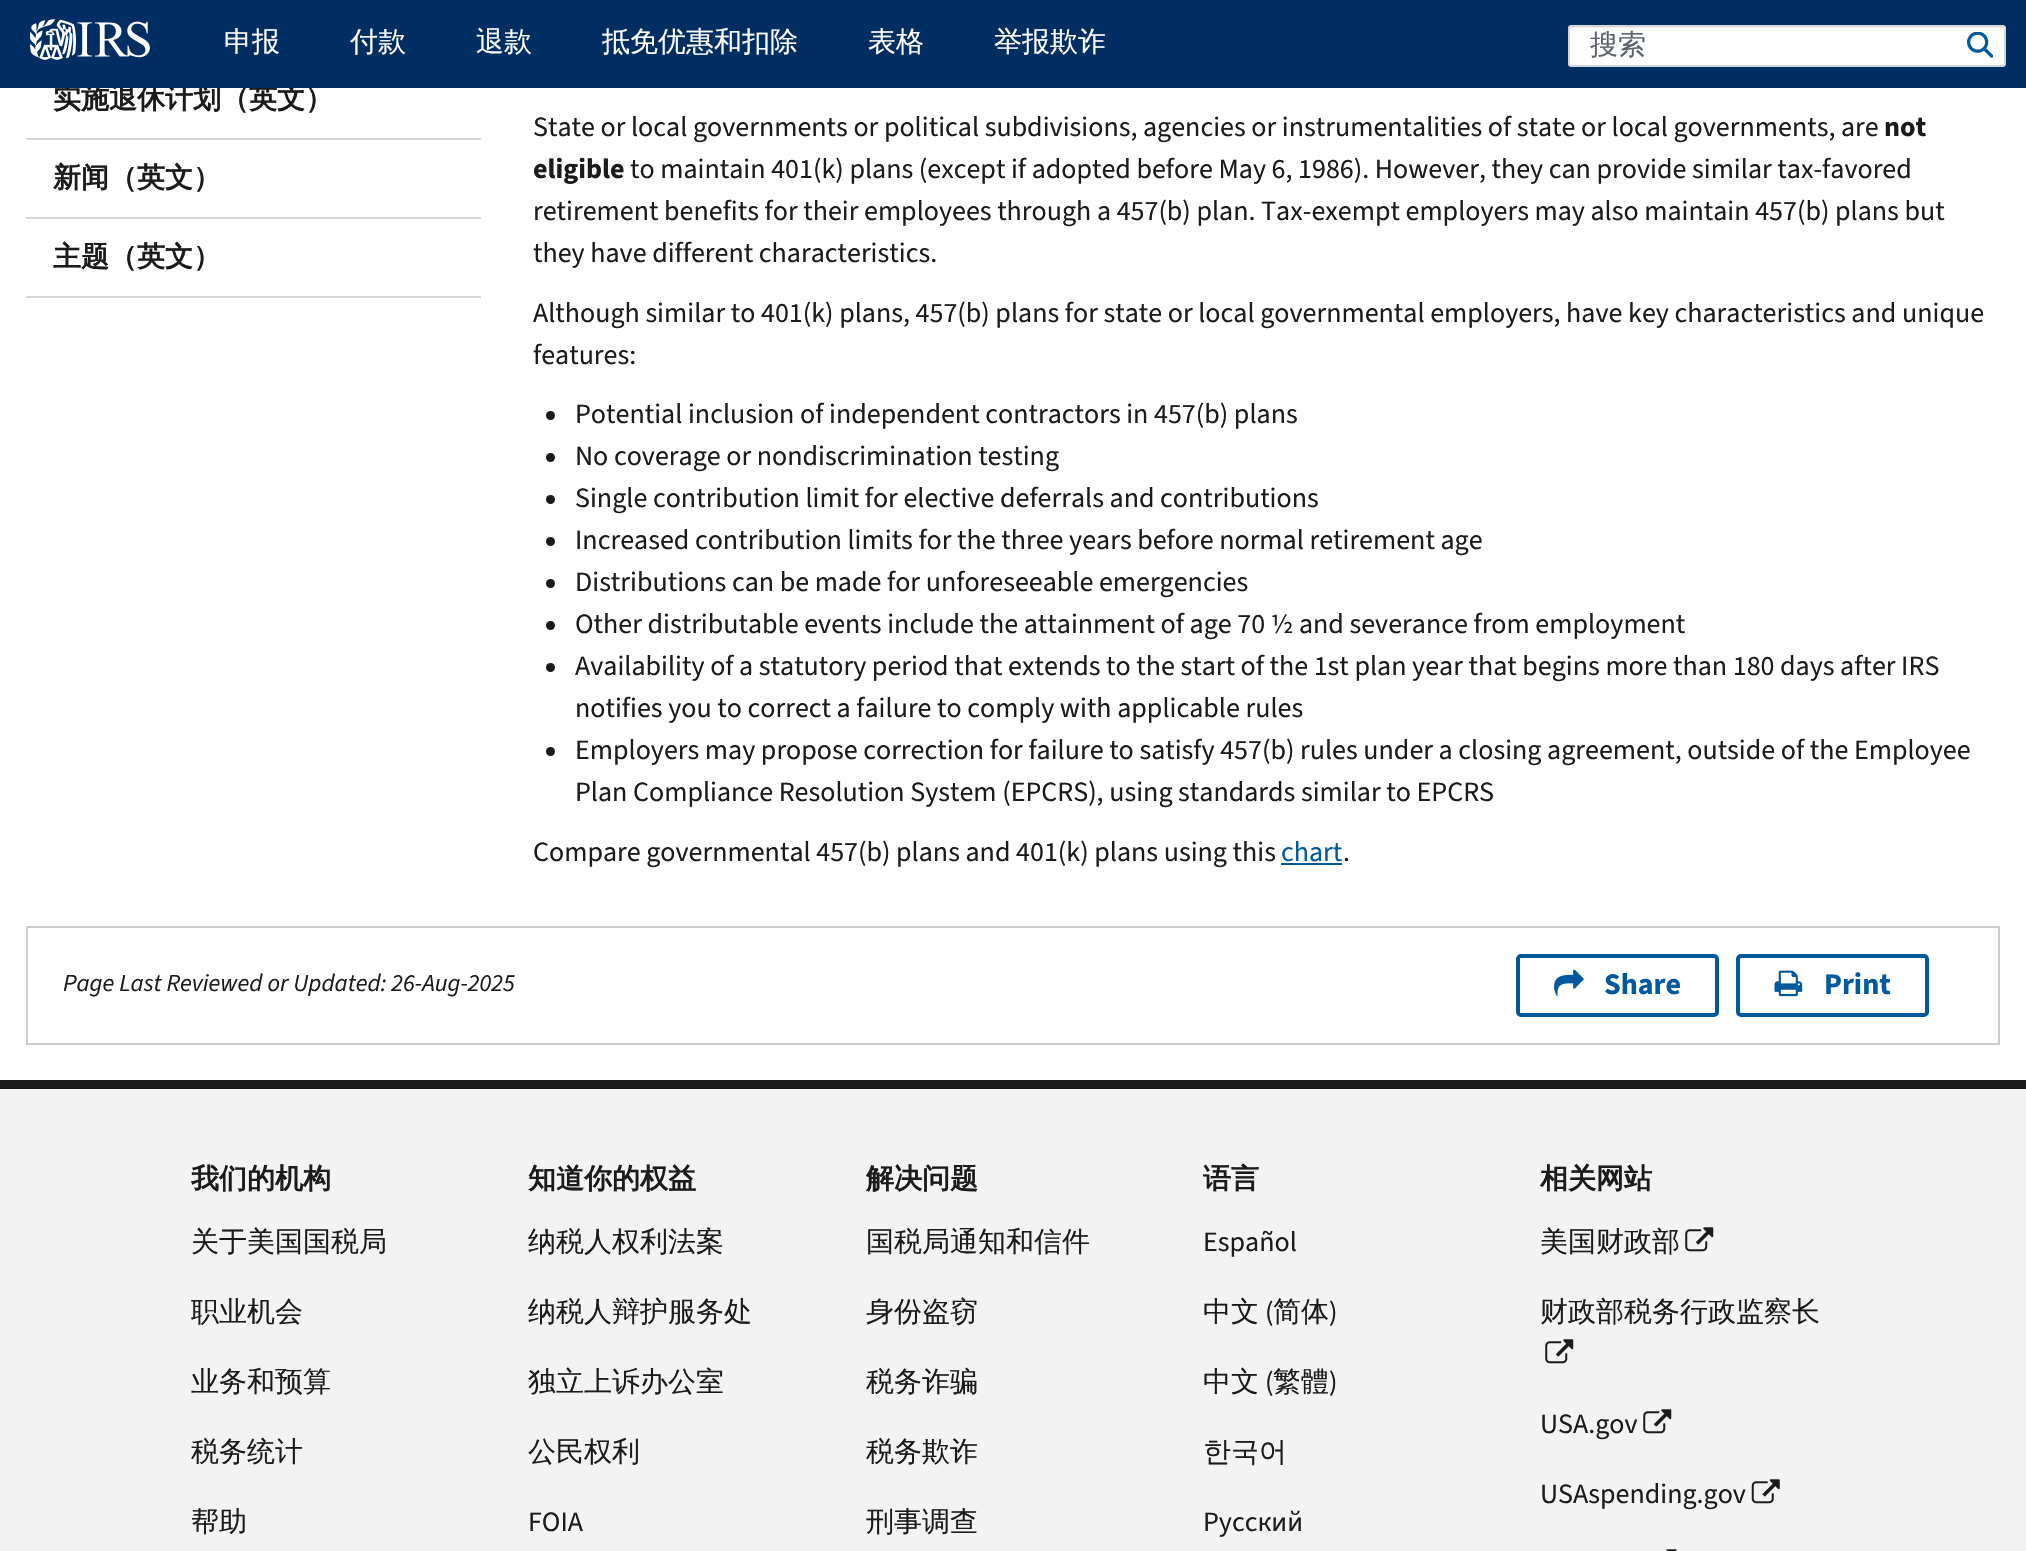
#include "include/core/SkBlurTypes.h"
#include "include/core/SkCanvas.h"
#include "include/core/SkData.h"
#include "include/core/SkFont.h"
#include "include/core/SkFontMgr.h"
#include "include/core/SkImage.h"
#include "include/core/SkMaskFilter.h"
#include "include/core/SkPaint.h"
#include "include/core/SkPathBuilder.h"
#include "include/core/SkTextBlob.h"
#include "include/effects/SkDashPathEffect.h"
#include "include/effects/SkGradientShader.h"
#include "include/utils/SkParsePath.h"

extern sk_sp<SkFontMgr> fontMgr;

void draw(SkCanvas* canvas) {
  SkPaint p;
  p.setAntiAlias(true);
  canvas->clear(SK_ColorWHITE);
  p.setColor(SkColorSetRGB(214, 215, 217));
  canvas->drawRect(SkRect::MakeLTRB(26, 138, 481, 140), p);
  canvas->drawRect(SkRect::MakeLTRB(26, 217, 481, 219), p);
  canvas->drawRect(SkRect::MakeLTRB(26, 296, 481, 298), p);
  p.setColor(SkColorSetRGB(27, 27, 27));
  canvas->drawCircle(550.5f, 415.5f, 4.5f, p);
  canvas->drawCircle(550.5f, 457.5f, 4.5f, p);
  canvas->drawCircle(550.5f, 499.5f, 4.5f, p);
  canvas->drawCircle(550.5f, 541.5f, 4.5f, p);
  canvas->drawCircle(550.5f, 583.5f, 4.5f, p);
  canvas->drawCircle(550.5f, 625.5f, 4.5f, p);
  canvas->drawCircle(550.5f, 667.5f, 4.5f, p);
  canvas->drawCircle(550.5f, 751.5f, 4.5f, p);
  p.setColor(SkColorSetRGB(0, 89, 156));
  canvas->drawRect(SkRect::MakeLTRB(1281, 863, 1342, 865), p);
  p.setStyle(SkPaint::kStroke_Style);
  p.setStrokeWidth(2);
  p.setColor(SkColorSetRGB(204, 204, 204));
  canvas->drawRect(SkRect::MakeLTRB(27, 927, 1999, 1044), p);
  p.setStrokeWidth(4);
  p.setColor(SkColorSetRGB(0, 89, 156));
  canvas->drawRoundRect(SkRect::MakeLTRB(1518, 956, 1717, 1015), 3, 3, p);
  canvas->drawImageRect(SkImages::DeferredFromEncodedData(SkData::MakeFromFileName("images/3.png")), SkRect::MakeLTRB(1554, 969, 1584, 997), SkSamplingOptions());
  canvas->drawRoundRect(SkRect::MakeLTRB(1738, 956, 1927, 1015), 3, 3, p);
  canvas->drawImageRect(SkImages::DeferredFromEncodedData(SkData::MakeFromFileName("images/4.png")), SkRect::MakeLTRB(1774, 970, 1803, 997), SkSamplingOptions());
  p.setStyle(SkPaint::kFill_Style);
  p.setColor(SkColorSetRGB(243, 243, 243));
  canvas->drawRect(SkRect::MakeLTRB(0, 1089, 2026, 1551), p);
  p.setColor(SkColorSetRGB(27, 27, 27));
  canvas->drawRect(SkRect::MakeLTRB(0, 1080, 2026, 1089), p);
  canvas->drawImageRect(SkImages::DeferredFromEncodedData(SkData::MakeFromFileName("images/5.png")), SkRect::MakeLTRB(1685, 1227, 1714, 1252), SkSamplingOptions());
  canvas->drawImageRect(SkImages::DeferredFromEncodedData(SkData::MakeFromFileName("images/5.png")), SkRect::MakeLTRB(1545, 1339, 1574, 1364), SkSamplingOptions());
  canvas->drawImageRect(SkImages::DeferredFromEncodedData(SkData::MakeFromFileName("images/5.png")), SkRect::MakeLTRB(1643, 1409, 1672, 1434), SkSamplingOptions());
  canvas->drawImageRect(SkImages::DeferredFromEncodedData(SkData::MakeFromFileName("images/6.png")), SkRect::MakeLTRB(1751, 1479, 1780, 1504), SkSamplingOptions());
  canvas->drawImageRect(SkImages::DeferredFromEncodedData(SkData::MakeFromFileName("images/7.png")), SkRect::MakeLTRB(1666, 1549, 1677, 1551), SkSamplingOptions());
  SkFont font1(fontMgr->matchFamilyStyle("WenQuanYi Zen Hei", SkFontStyle::Bold()), 28);
  font1.setSubpixel(true);
  canvas->drawString("实施退休计划（英文）", 53, 108, font1, p);
  p.setColor(SkColorSetRGB(0, 45, 98));
  canvas->drawRect(SkRect::MakeLTRB(0, 0, 2026, 88), p);
  p.setColor(SK_ColorWHITE);
  canvas->drawRoundRect(SkRect::MakeLTRB(1568, 25, 2006, 67), 4, 4, p);
  p.setColor(SkColorSetRGB(236, 236, 236));
  canvas->drawPath(SkPathBuilder().moveTo(1572, 28).lineTo(2002, 28).cubicTo(2003, 28, 2004, 29, 2004, 30).cubicTo(2004, 28, 2004, 26, 2002, 26).lineTo(1572, 26).lineTo(1570, 27).lineTo(1570, 30).cubicTo(1570, 29, 1571, 28, 1572, 28).close().detach(), p);
  p.setStyle(SkPaint::kStroke_Style);
  p.setStrokeWidth(2);
  p.setColor(SkColorSetRGB(214, 215, 217));
  canvas->drawRoundRect(SkRect::MakeLTRB(1569, 26, 2005, 66), 3, 3, p);
  canvas->drawImageRect(SkImages::DeferredFromEncodedData(SkData::MakeFromFileName("images/2.png")), SkRect::MakeLTRB(1967, 32, 1993, 58), SkSamplingOptions());
  SkFont font2(fontMgr->matchFamilyStyle("WenQuanYi Zen Hei", SkFontStyle(500, SkFontStyle::kNormal_Width, SkFontStyle::kUpright_Slant)), 28);
  font2.setSubpixel(true);
  p.setStyle(SkPaint::kFill_Style);
  p.setColor(SK_ColorWHITE);
  canvas->drawString("举报欺诈", 994, 51, font2, p);
  canvas->drawString("表格", 868, 51, font2, p);
  canvas->drawString("抵免优惠和扣除", 602, 51, font2, p);
  canvas->drawString("退款", 476, 51, font2, p);
  canvas->drawString("付款", 350, 51, font2, p);
  canvas->drawString("申报", 224, 51, font2, p);
  p.setColor(SkColorSetRGB(91, 97, 107));
  canvas->drawString("搜索", 1590, 54, font2, p);
  canvas->drawImageRect(SkImages::DeferredFromEncodedData(SkData::MakeFromFileName("images/1.png")), SkRect::MakeLTRB(30, 19, 150, 60), SkSamplingOptions());
  p.setColor(SkColorSetRGB(27, 27, 27));
  canvas->drawString("新闻（英文）", 53, 187, font1, p);
  canvas->drawString("主题（英文）", 53, 266, font1, p);
  SkFont font3(fontMgr->matchFamilyStyle("Source Sans 3", SkFontStyle::Normal()), 28);
  font3.setSubpixel(true);
  canvas->drawString("State or local governments or political subdivisions, agencies or instrumentalities of state or local governments, are", 533, 136, font3, p);
  SkFont font4(fontMgr->matchFamilyStyle("Source Sans 3", SkFontStyle::Bold()), 28);
  font4.setSubpixel(true);
  canvas->drawString("not", 1884, 136, font4, p);
  canvas->drawString("eligible", 533, 178, font4, p);
  canvas->drawString("to maintain 401(k) plans (except if adopted before May 6, 1986). However, they can provide similar tax-favored", 630, 178, font3, p);
  canvas->drawString("retirement benefits for their employees through a 457(b) plan. Tax-exempt employers may also maintain 457(b) plans but", 533, 220, font3, p);
  canvas->drawString("they have different characteristics.", 533, 262, font3, p);
  canvas->drawString("Although similar to 401(k) plans, 457(b) plans for state or local governmental employers, have key characteristics and unique", 533, 322, font3, p);
  canvas->drawString("features:", 533, 364, font3, p);
  canvas->drawString("Potential inclusion of independent contractors in 457(b) plans", 575, 423, font3, p);
  canvas->drawString("No coverage or nondiscrimination testing", 575, 465, font3, p);
  canvas->drawString("Single contribution limit for elective deferrals and contributions", 575, 507, font3, p);
  canvas->drawString("Increased contribution limits for the three years before normal retirement age", 575, 549, font3, p);
  canvas->drawString("Distributions can be made for unforeseeable emergencies", 575, 591, font3, p);
  canvas->drawString("Other distributable events include the attainment of age 70 ½ and severance from employment", 575, 633, font3, p);
  canvas->drawString("Availability of a statutory period that extends to the start of the 1st plan year that begins more than 180 days after IRS", 575, 675, font3, p);
  canvas->drawString("notifies you to correct a failure to comply with applicable rules", 575, 717, font3, p);
  canvas->drawString("Employers may propose correction for failure to satisfy 457(b) rules under a closing agreement, outside of the Employee", 575, 759, font3, p);
  canvas->drawString("Plan Compliance Resolution System (EPCRS), using standards similar to EPCRS", 575, 801, font3, p);
  canvas->drawString("Compare governmental 457(b) plans and 401(k) plans using this", 533, 861, font3, p);
  p.setColor(SkColorSetRGB(0, 89, 156));
  canvas->drawString("chart", 1281, 861, font3, p);
  p.setColor(SkColorSetRGB(27, 27, 27));
  canvas->drawString(".", 1343, 861, font3, p);
  SkFont font5(fontMgr->matchFamilyStyle("Source Sans 3", SkFontStyle::Italic()), 24.5f);
  font5.setSubpixel(true);
  canvas->drawString("Page Last Reviewed or Updated: 26-Aug-2025", 63, 991, font5, p);
  SkFont font6(fontMgr->matchFamilyStyle("Source Sans 3", SkFontStyle::Bold()), 30);
  font6.setSubpixel(true);
  p.setColor(SkColorSetRGB(0, 89, 156));
  canvas->drawString("Share", 1604, 994, font6, p);
  canvas->drawString("Print", 1824, 994, font6, p);
  p.setColor(SkColorSetRGB(27, 27, 27));
  canvas->drawString("我们的机构", 191, 1188, font1, p);
  canvas->drawString("关于美国国税局", 191, 1251, font2, p);
  canvas->drawString("职业机会", 191, 1321, font2, p);
  canvas->drawString("业务和预算", 191, 1391, font2, p);
  canvas->drawString("税务统计", 191, 1461, font2, p);
  canvas->drawString("帮助", 191, 1531, font2, p);
  canvas->drawString("知道你的权益", 528, 1188, font1, p);
  canvas->drawString("纳税人权利法案", 528, 1251, font2, p);
  canvas->drawString("纳税人辩护服务处", 528, 1321, font2, p);
  canvas->drawString("独立上诉办公室", 528, 1391, font2, p);
  canvas->drawString("公民权利", 528, 1461, font2, p);
  canvas->drawString("FOIA", 528, 1531, font3, p);
  canvas->drawString("解决问题", 866, 1188, font1, p);
  canvas->drawString("国税局通知和信件", 866, 1251, font2, p);
  canvas->drawString("身份盗窃", 866, 1321, font2, p);
  canvas->drawString("税务诈骗", 866, 1391, font2, p);
  canvas->drawString("税务欺诈", 866, 1461, font2, p);
  canvas->drawString("刑事调查", 866, 1531, font2, p);
  canvas->drawString("语言", 1203, 1188, font1, p);
  canvas->drawString("Español", 1203, 1251, font3, p);
  canvas->drawString("中文", 1203, 1321, font2, p);
  canvas->drawString("(", 1265, 1321, font3, p);
  canvas->drawString("简体", 1273, 1321, font2, p);
  canvas->drawString(")", 1329, 1321, font3, p);
  canvas->drawString("中文", 1203, 1391, font2, p);
  canvas->drawString("(", 1265, 1391, font3, p);
  canvas->drawString("繁體", 1273, 1391, font2, p);
  canvas->drawString(")", 1329, 1391, font3, p);
  canvas->drawString("한국어", 1203, 1461, font2, p);
  canvas->drawString("Pусский", 1203, 1531, font3, p);
  canvas->drawString("相关网站", 1540, 1188, font1, p);
  canvas->drawString("美国财政部", 1540, 1251, font2, p);
  canvas->drawString("财政部税务行政监察长", 1540, 1321, font2, p);
  canvas->drawString("USA.gov", 1540, 1433, font3, p);
  canvas->drawString("USAspending.gov", 1540, 1503, font3, p);
}
